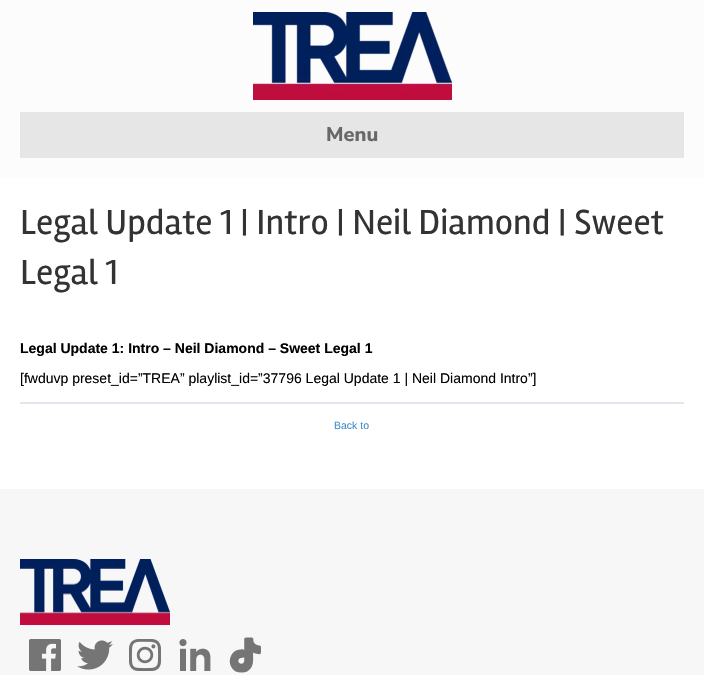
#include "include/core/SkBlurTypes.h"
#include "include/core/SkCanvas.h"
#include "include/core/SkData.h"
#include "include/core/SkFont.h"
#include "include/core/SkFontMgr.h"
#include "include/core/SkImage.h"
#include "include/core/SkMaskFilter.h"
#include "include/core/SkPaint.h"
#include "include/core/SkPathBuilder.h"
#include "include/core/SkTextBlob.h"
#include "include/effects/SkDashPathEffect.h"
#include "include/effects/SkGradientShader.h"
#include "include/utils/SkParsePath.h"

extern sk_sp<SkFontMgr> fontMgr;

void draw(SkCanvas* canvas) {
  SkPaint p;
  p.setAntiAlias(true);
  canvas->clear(SkColorSetRGB(252, 252, 252));
  canvas->drawImageRect(SkImages::DeferredFromEncodedData(SkData::MakeFromFileName("images/1.png")), SkRect::MakeLTRB(253, 12, 452, 100), SkSamplingOptions());
  p.setColor(SkColorSetRGB(230, 230, 230));
  canvas->drawRect(SkRect::MakeLTRB(20, 112, 684, 158), p);
  p.setColor(SK_ColorWHITE);
  canvas->drawRect(SkRect::MakeLTRB(0, 178, 704, 489), p);
  p.setColor(SkColorSetRGB(226, 231, 237));
  canvas->drawRect(SkRect::MakeLTRB(20, 402, 684, 404), p);
  p.setColor(SkColorSetRGB(247, 247, 247));
  canvas->drawRect(SkRect::MakeLTRB(0, 489, 704, 675), p);
  canvas->drawImageRect(SkImages::DeferredFromEncodedData(SkData::MakeFromFileName("images/2.png")), SkRect::MakeLTRB(20, 559, 170, 625), SkSamplingOptions());
  canvas->drawImageRect(SkImages::DeferredFromEncodedData(SkData::MakeFromFileName("images/3.png")), SkRect::MakeLTRB(29, 639, 61, 671), SkSamplingOptions());
  canvas->drawImageRect(SkImages::DeferredFromEncodedData(SkData::MakeFromFileName("images/4.png")), SkRect::MakeLTRB(77, 640, 113, 670), SkSamplingOptions());
  canvas->drawImageRect(SkImages::DeferredFromEncodedData(SkData::MakeFromFileName("images/5.png")), SkRect::MakeLTRB(129, 639, 161, 671), SkSamplingOptions());
  canvas->drawImageRect(SkImages::DeferredFromEncodedData(SkData::MakeFromFileName("images/6.png")), SkRect::MakeLTRB(179, 639, 211, 671), SkSamplingOptions());
  canvas->drawImageRect(SkImages::DeferredFromEncodedData(SkData::MakeFromFileName("images/7.png")), SkRect::MakeLTRB(229, 637, 261, 673), SkSamplingOptions());
  SkFont font1(fontMgr->matchFamilyStyle("Nunito Sans", SkFontStyle(200, SkFontStyle::kNormal_Width, SkFontStyle::kUpright_Slant)), 20);
  font1.setSubpixel(true);
  p.setColor(SkColorSetRGB(104, 104, 104));
  canvas->drawString("Menu", 326, 141, font1, p);
  SkFont font2(fontMgr->matchFamilyStyle("Rambla", SkFontStyle::Normal()), 36);
  font2.setSubpixel(true);
  p.setColor(SkColorSetRGB(51, 51, 51));
  canvas->drawString("Legal Update 1 | Intro | Neil Diamond | Sweet", 20, 234, font2, p);
  canvas->drawString("Legal 1", 20, 284, font2, p);
  SkFont font3(fontMgr->matchFamilyStyle("Liberation Sans", SkFontStyle::Bold()), 14);
  font3.setSubpixel(true);
  p.setColor(SK_ColorBLACK);
  canvas->drawString("Legal Update 1: Intro – Neil Diamond – Sweet Legal 1", 20, 353, font3, p);
  SkFont font4(fontMgr->matchFamilyStyle("Liberation Sans", SkFontStyle::Normal()), 14);
  font4.setSubpixel(true);
  canvas->drawString("[fwduvp preset_id=”TREA” playlist_id=”37796 Legal Update 1 | Neil Diamond Intro”]", 20, 383, font4, p);
  SkFont font5(fontMgr->matchFamilyStyle("Liberation Sans", SkFontStyle::Normal()), 10.5f);
  font5.setSubpixel(true);
  p.setColor(SkColorSetRGB(66, 139, 202));
  canvas->drawString("Back to", 334, 429, font5, p);
}
